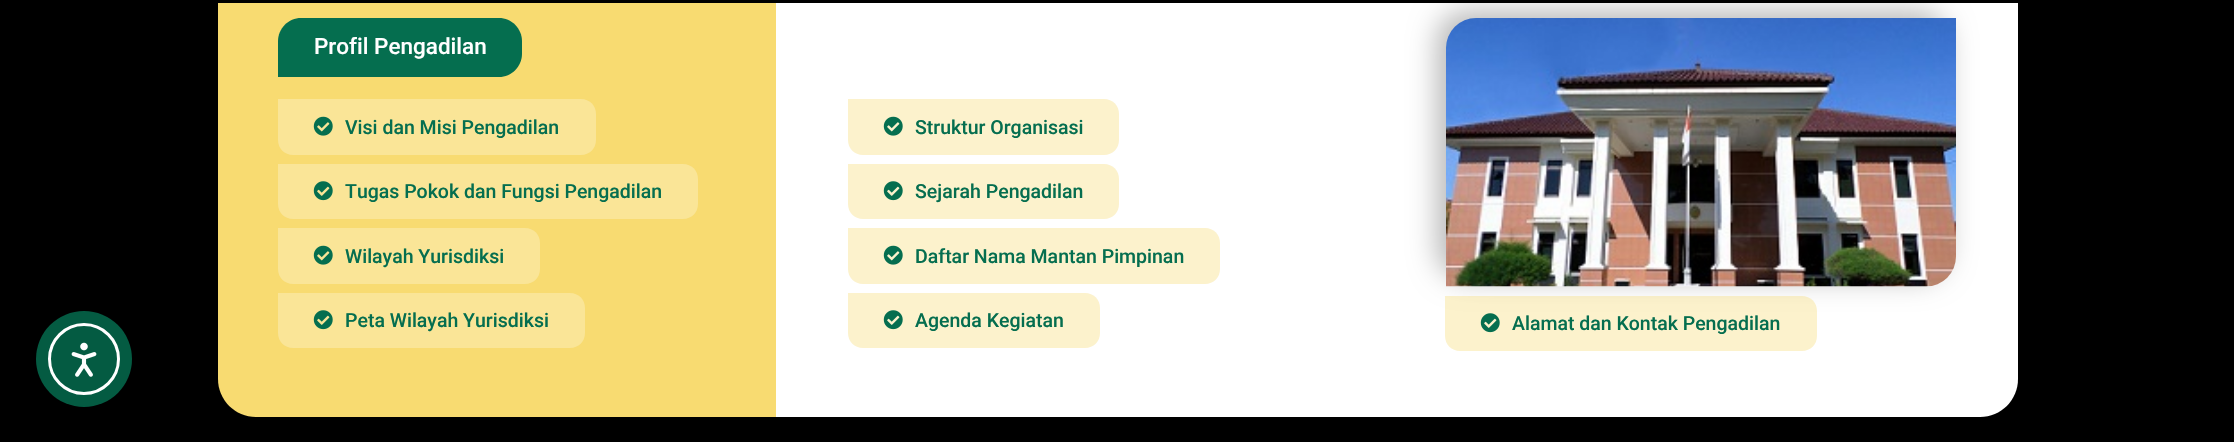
#include "include/core/SkBlurTypes.h"
#include "include/core/SkCanvas.h"
#include "include/core/SkData.h"
#include "include/core/SkFont.h"
#include "include/core/SkFontMgr.h"
#include "include/core/SkImage.h"
#include "include/core/SkMaskFilter.h"
#include "include/core/SkPaint.h"
#include "include/core/SkPathBuilder.h"
#include "include/core/SkTextBlob.h"
#include "include/effects/SkDashPathEffect.h"
#include "include/effects/SkGradientShader.h"
#include "include/utils/SkParsePath.h"

extern sk_sp<SkFontMgr> fontMgr;

void draw(SkCanvas* canvas) {
  SkPaint p;
  p.setAntiAlias(true);
  canvas->clear(SK_ColorBLACK);
  p.setColor(SK_ColorWHITE);
  canvas->drawPath(SkPathBuilder().moveTo(776, 3).lineTo(2018, 3).lineTo(2018, 379).cubicTo(2018, 400, 2001, 417, 1980, 417).lineTo(776, 417).close().detach(), p);
  p.setColor(SkColorSetRGB(248, 219, 113));
  canvas->drawPath(SkPathBuilder().moveTo(218, 3).lineTo(776, 3).lineTo(776, 417).lineTo(256, 417).cubicTo(235, 417, 218, 400, 218, 379).close().detach(), p);
  p.setColor(SkColorSetRGB(5, 110, 79));
  canvas->drawPath(SkPathBuilder().moveTo(301, 18).lineTo(499, 18).cubicTo(511.5f, 18, 522, 28.5f, 522, 41).lineTo(522, 54).cubicTo(522, 66.5f, 511.5f, 77, 499, 77).lineTo(278, 77).lineTo(278, 41).cubicTo(278, 28.5f, 288.5f, 18, 301, 18).close().detach(), p);
  p.setColor(SkColorSetRGB(250, 229, 151));
  canvas->drawPath(SkPathBuilder().moveTo(278, 99).lineTo(581, 99).cubicTo(589.5f, 99, 596, 105.5f, 596, 114).lineTo(596, 140).cubicTo(596, 148.5f, 589.5f, 155, 581, 155).lineTo(293, 155).cubicTo(284.5f, 155, 278, 148.5f, 278, 140).close().detach(), p);
  canvas->drawImageRect(SkImages::DeferredFromEncodedData(SkData::MakeFromFileName("images/1.png")), SkRect::MakeLTRB(313, 116, 333, 136), SkSamplingOptions());
  canvas->drawPath(SkPathBuilder().moveTo(278, 164).lineTo(683, 164).cubicTo(691.5f, 164, 698, 170.5f, 698, 179).lineTo(698, 204).cubicTo(698, 212.5f, 691.5f, 219, 683, 219).lineTo(293, 219).cubicTo(284.5f, 219, 278, 212.5f, 278, 204).close().detach(), p);
  canvas->drawImageRect(SkImages::DeferredFromEncodedData(SkData::MakeFromFileName("images/2.png")), SkRect::MakeLTRB(313, 181, 333, 201), SkSamplingOptions());
  canvas->drawPath(SkPathBuilder().moveTo(278, 228).lineTo(525, 228).cubicTo(533.5f, 228, 540, 234.5f, 540, 243).lineTo(540, 269).cubicTo(540, 277.5f, 533.5f, 284, 525, 284).lineTo(293, 284).cubicTo(284.5f, 284, 278, 277.5f, 278, 269).close().detach(), p);
  canvas->drawImageRect(SkImages::DeferredFromEncodedData(SkData::MakeFromFileName("images/1.png")), SkRect::MakeLTRB(313, 245, 333, 265), SkSamplingOptions());
  canvas->drawPath(SkPathBuilder().moveTo(278, 293).lineTo(570, 293).cubicTo(578.5f, 293, 585, 299.5f, 585, 308).lineTo(585, 333).cubicTo(585, 341.5f, 578.5f, 348, 570, 348).lineTo(293, 348).cubicTo(284.5f, 348, 278, 341.5f, 278, 333).close().detach(), p);
  canvas->drawImageRect(SkImages::DeferredFromEncodedData(SkData::MakeFromFileName("images/2.png")), SkRect::MakeLTRB(313, 310, 333, 330), SkSamplingOptions());
  p.setColor(SkColorSetRGB(252, 242, 204));
  canvas->drawPath(SkPathBuilder().moveTo(848, 99).lineTo(1104, 99).cubicTo(1112.5f, 99, 1119, 105.5f, 1119, 114).lineTo(1119, 140).cubicTo(1119, 148.5f, 1112.5f, 155, 1104, 155).lineTo(863, 155).cubicTo(854.5f, 155, 848, 148.5f, 848, 140).close().detach(), p);
  canvas->drawImageRect(SkImages::DeferredFromEncodedData(SkData::MakeFromFileName("images/3.png")), SkRect::MakeLTRB(883, 116, 903, 136), SkSamplingOptions());
  canvas->drawPath(SkPathBuilder().moveTo(848, 164).lineTo(1104, 164).cubicTo(1112.5f, 164, 1119, 170.5f, 1119, 179).lineTo(1119, 204).cubicTo(1119, 212.5f, 1112.5f, 219, 1104, 219).lineTo(863, 219).cubicTo(854.5f, 219, 848, 212.5f, 848, 204).close().detach(), p);
  canvas->drawImageRect(SkImages::DeferredFromEncodedData(SkData::MakeFromFileName("images/4.png")), SkRect::MakeLTRB(883, 181, 903, 201), SkSamplingOptions());
  canvas->drawPath(SkPathBuilder().moveTo(848, 228).lineTo(1205, 228).cubicTo(1213.5f, 228, 1220, 234.5f, 1220, 243).lineTo(1220, 269).cubicTo(1220, 277.5f, 1213.5f, 284, 1205, 284).lineTo(863, 284).cubicTo(854.5f, 284, 848, 277.5f, 848, 269).close().detach(), p);
  canvas->drawImageRect(SkImages::DeferredFromEncodedData(SkData::MakeFromFileName("images/3.png")), SkRect::MakeLTRB(883, 245, 903, 265), SkSamplingOptions());
  canvas->drawPath(SkPathBuilder().moveTo(848, 293).lineTo(1085, 293).cubicTo(1093.5f, 293, 1100, 299.5f, 1100, 308).lineTo(1100, 333).cubicTo(1100, 341.5f, 1093.5f, 348, 1085, 348).lineTo(863, 348).cubicTo(854.5f, 348, 848, 341.5f, 848, 333).close().detach(), p);
  canvas->drawImageRect(SkImages::DeferredFromEncodedData(SkData::MakeFromFileName("images/4.png")), SkRect::MakeLTRB(883, 310, 903, 330), SkSamplingOptions());
  p.setColor(SkColorSetARGB(71, 0, 0, 0));
  p.setMaskFilter(SkMaskFilter::MakeBlur(kNormal_SkBlurStyle, 14));
  canvas->drawRoundRect(SkRect::MakeLTRB(1437, 11, 1947, 279), 30, 30, p);
  p.setMaskFilter(nullptr);
  canvas->drawImageRect(SkImages::DeferredFromEncodedData(SkData::MakeFromFileName("images/5.png")), SkRect::MakeLTRB(1446, 18, 1956, 287), SkSamplingOptions());
  p.setColor(SkColorSetARGB(92, 248, 219, 114));
  canvas->drawPath(SkPathBuilder().moveTo(1445, 296).lineTo(1802, 296).cubicTo(1810.5f, 296, 1817, 302.5f, 1817, 311).lineTo(1817, 336).cubicTo(1817, 344.5f, 1810.5f, 351, 1802, 351).lineTo(1460, 351).cubicTo(1451.5f, 351, 1445, 344.5f, 1445, 336).close().detach(), p);
  canvas->drawImageRect(SkImages::DeferredFromEncodedData(SkData::MakeFromFileName("images/6.png")), SkRect::MakeLTRB(1480, 313, 1500, 333), SkSamplingOptions());
  p.setColor(SkColorSetRGB(4, 91, 66));
  canvas->drawCircle(84, 359, 48, p);
  p.setStyle(SkPaint::kStroke_Style);
  p.setStrokeWidth(3);
  p.setColor(SK_ColorWHITE);
  canvas->drawCircle(84, 359, 34.5f, p);
  canvas->drawImageRect(SkImages::DeferredFromEncodedData(SkData::MakeFromFileName("images/7.png")), SkRect::MakeLTRB(71, 342, 97, 377), SkSamplingOptions());
  SkFont font1(fontMgr->matchFamilyStyle("Roboto", SkFontStyle(500, SkFontStyle::kNormal_Width, SkFontStyle::kUpright_Slant)), 22.5f);
  font1.setSubpixel(true);
  p.setStyle(SkPaint::kFill_Style);
  canvas->drawString("Profil Pengadilan", 314, 54, font1, p);
  SkFont font2(fontMgr->matchFamilyStyle("Roboto", SkFontStyle(500, SkFontStyle::kNormal_Width, SkFontStyle::kUpright_Slant)), 19.5f);
  font2.setSubpixel(true);
  p.setColor(SkColorSetRGB(5, 110, 79));
  canvas->drawString("Visi dan Misi Pengadilan", 345, 134, font2, p);
  canvas->drawString("Tugas Pokok dan Fungsi Pengadilan", 345, 198, font2, p);
  canvas->drawString("Wilayah Yurisdiksi", 345, 263, font2, p);
  canvas->drawString("Peta Wilayah Yurisdiksi", 345, 327, font2, p);
  canvas->drawString("Struktur Organisasi", 915, 134, font2, p);
  canvas->drawString("Sejarah Pengadilan", 915, 198, font2, p);
  canvas->drawString("Daftar Nama Mantan Pimpinan", 915, 263, font2, p);
  canvas->drawString("Agenda Kegiatan", 915, 327, font2, p);
  canvas->drawString("Alamat dan Kontak Pengadilan", 1512, 330, font2, p);
}
